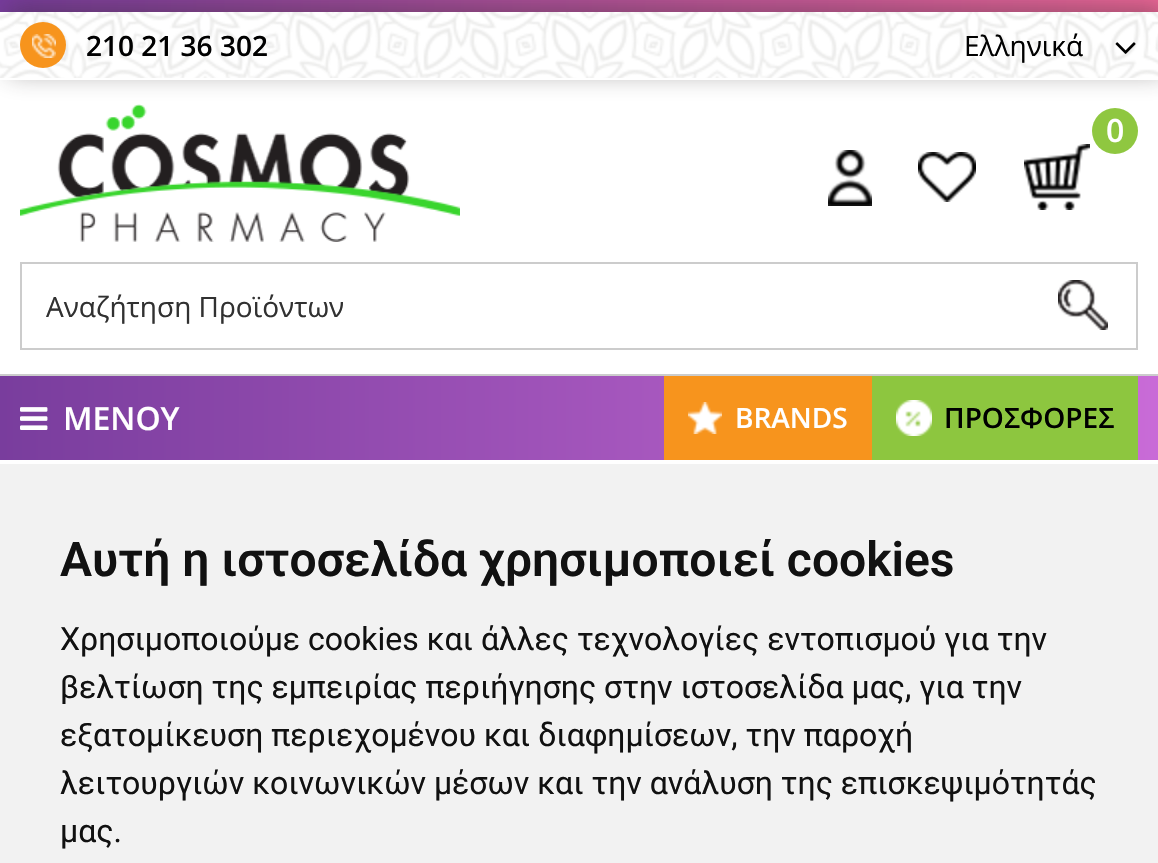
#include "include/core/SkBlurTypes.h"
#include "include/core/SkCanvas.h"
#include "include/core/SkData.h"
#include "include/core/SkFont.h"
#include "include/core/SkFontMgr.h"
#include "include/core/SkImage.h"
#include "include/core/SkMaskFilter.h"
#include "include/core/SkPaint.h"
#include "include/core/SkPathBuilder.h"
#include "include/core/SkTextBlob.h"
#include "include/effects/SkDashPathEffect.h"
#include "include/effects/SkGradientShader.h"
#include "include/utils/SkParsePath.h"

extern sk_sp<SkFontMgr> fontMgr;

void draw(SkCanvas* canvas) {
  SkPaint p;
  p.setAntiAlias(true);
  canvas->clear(SK_ColorWHITE);
  {
    const SkColor colors[] = {SkColorSetRGB(119, 59, 156), SkColorSetRGB(240, 103, 153)};
    const float stops[] = {0, 1};
    const SkPoint ends[] = {{0, 6}, {1158, 6}};
    p.setShader(SkGradientShader::MakeLinear(ends, colors, stops, 2, SkTileMode::kClamp));
    p.setAlpha(255);
  }
  canvas->drawRect(SkRect::MakeLTRB(0, 0, 1158, 12), p);
  canvas->save();
  canvas->clipPath(SkPathBuilder(SkPathFillType::kEvenOdd).moveTo(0, 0).lineTo(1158, 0).lineTo(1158, 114).lineTo(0, 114).close().moveTo(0, 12).lineTo(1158, 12).lineTo(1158, 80).lineTo(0, 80).close().detach(), true);
  p.setShader(nullptr);
  p.setColor(SkColorSetARGB(102, 44, 40, 41));
  p.setMaskFilter(SkMaskFilter::MakeBlur(kNormal_SkBlurStyle, 13));
  canvas->drawRect(SkRect::MakeLTRB(8, 6, 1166, 74), p);
  p.setMaskFilter(nullptr);
  canvas->restore();
  canvas->drawImageRect(SkImages::DeferredFromEncodedData(SkData::MakeFromFileName("images/1.png")), SkRect::MakeLTRB(0, 12, 1158, 78), SkSamplingOptions());
  p.setColor(SkColorSetRGB(247, 148, 29));
  canvas->drawCircle(43, 45, 23, p);
  canvas->drawImageRect(SkImages::DeferredFromEncodedData(SkData::MakeFromFileName("images/2.png")), SkRect::MakeLTRB(32, 34, 56, 58), SkSamplingOptions());
  canvas->drawImageRect(SkImages::DeferredFromEncodedData(SkData::MakeFromFileName("images/3.png")), SkRect::MakeLTRB(1115, 42, 1136, 54), SkSamplingOptions());
  p.setColor(SkColorSetRGB(204, 204, 204));
  canvas->drawRect(SkRect::MakeLTRB(0, 374, 1158, 376), p);
  canvas->drawImageRect(SkImages::DeferredFromEncodedData(SkData::MakeFromFileName("images/4.png")), SkRect::MakeLTRB(20, 104, 460, 242), SkSamplingOptions());
  canvas->drawImageRect(SkImages::DeferredFromEncodedData(SkData::MakeFromFileName("images/5.png")), SkRect::MakeLTRB(1024, 144, 1090, 210), SkSamplingOptions());
  p.setColor(SkColorSetRGB(143, 199, 64));
  canvas->drawCircle(1115, 131, 23, p);
  canvas->drawImageRect(SkImages::DeferredFromEncodedData(SkData::MakeFromFileName("images/6.png")), SkRect::MakeLTRB(828, 150, 872, 206), SkSamplingOptions());
  canvas->drawImageRect(SkImages::DeferredFromEncodedData(SkData::MakeFromFileName("images/7.png")), SkRect::MakeLTRB(918, 152, 976, 202), SkSamplingOptions());
  p.setStyle(SkPaint::kStroke_Style);
  p.setStrokeWidth(2);
  p.setColor(SkColorSetRGB(204, 204, 204));
  canvas->drawRect(SkRect::MakeLTRB(21, 263, 1137, 349), p);
  canvas->drawImageRect(SkImages::DeferredFromEncodedData(SkData::MakeFromFileName("images/8.png")), SkRect::MakeLTRB(1058, 280, 1108, 330), SkSamplingOptions());
  p.setStyle(SkPaint::kFill_Style);
  {
    const SkColor colors[] = {SkColorSetRGB(121, 61, 157), SkColorSetRGB(201, 107, 215)};
    const float stops[] = {0, 1};
    const SkPoint ends[] = {{0, 418}, {1158, 418}};
    p.setShader(SkGradientShader::MakeLinear(ends, colors, stops, 2, SkTileMode::kClamp));
    p.setAlpha(255);
  }
  canvas->drawRect(SkRect::MakeLTRB(0, 376, 1158, 460), p);
  canvas->drawImageRect(SkImages::DeferredFromEncodedData(SkData::MakeFromFileName("images/9.png")), SkRect::MakeLTRB(20, 407, 48, 430), SkSamplingOptions());
  p.setShader(nullptr);
  p.setColor(SkColorSetRGB(247, 148, 29));
  canvas->drawRect(SkRect::MakeLTRB(664, 376, 872, 460), p);
  canvas->drawImageRect(SkImages::DeferredFromEncodedData(SkData::MakeFromFileName("images/10.png")), SkRect::MakeLTRB(688, 402, 722, 434), SkSamplingOptions());
  p.setColor(SkColorSetRGB(141, 198, 63));
  canvas->drawRect(SkRect::MakeLTRB(872, 376, 1138, 460), p);
  canvas->drawImageRect(SkImages::DeferredFromEncodedData(SkData::MakeFromFileName("images/11.png")), SkRect::MakeLTRB(896, 400, 932, 436), SkSamplingOptions());
  p.setColor(SkColorSetRGB(242, 242, 242));
  canvas->drawRect(SkRect::MakeLTRB(0, 464, 1158, 863), p);
  SkFont font1(fontMgr->matchFamilyStyle("Open Sans", SkFontStyle(600, SkFontStyle::kNormal_Width, SkFontStyle::kUpright_Slant)), 28);
  font1.setSubpixel(true);
  p.setColor(SK_ColorBLACK);
  canvas->drawString("210 21 36 302", 86, 56, font1, p);
  SkFont font2(fontMgr->matchFamilyStyle("Open Sans", SkFontStyle::Normal()), 28);
  font2.setSubpixel(true);
  canvas->drawString("Ελληνικά", 964, 56, font2, p);
  SkFont font3(fontMgr->matchFamilyStyle("Open Sans", SkFontStyle(600, SkFontStyle::kNormal_Width, SkFontStyle::kUpright_Slant)), 32);
  font3.setSubpixel(true);
  p.setColor(SK_ColorWHITE);
  canvas->drawString("0", 1106, 142, font3, p);
  p.setColor(SkColorSetRGB(49, 49, 49));
  canvas->drawString("Αναζήτηση Προϊόντων", 46, 317, font2, p);
  p.setColor(SK_ColorWHITE);
  canvas->drawString("ΜΕΝΟΥ", 63, 430, font3, p);
  canvas->drawString("BRANDS", 735, 428, font1, p);
  p.setColor(SK_ColorBLACK);
  canvas->drawString("ΠΡΟΣΦΟΡΕΣ", 944, 428, font1, p);
  SkFont font4(fontMgr->matchFamilyStyle("Roboto", SkFontStyle(600, SkFontStyle::kNormal_Width, SkFontStyle::kUpright_Slant)), 48);
  font4.setSubpixel(true);
  p.setColor(SkColorSetRGB(17, 17, 17));
  canvas->drawString("Αυτή η ιστοσελίδα χρησιμοποιεί cookies", 60, 576, font4, p);
  SkFont font5(fontMgr->matchFamilyStyle("Roboto", SkFontStyle::Normal()), 32);
  font5.setSubpixel(true);
  canvas->drawString("Χρησιμοποιούμε cookies και άλλες τεχνολογίες εντοπισμού για την", 60, 650, font5, p);
  canvas->drawString("βελτίωση της εμπειρίας περιήγησης στην ιστοσελίδα μας, για την", 60, 698, font5, p);
  canvas->drawString("εξατομίκευση περιεχομένου και διαφημίσεων, την παροχή", 60, 746, font5, p);
  canvas->drawString("λειτουργιών κοινωνικών μέσων και την ανάλυση της επισκεψιμότητάς", 60, 794, font5, p);
  canvas->drawString("μας.", 60, 842, font5, p);
}
